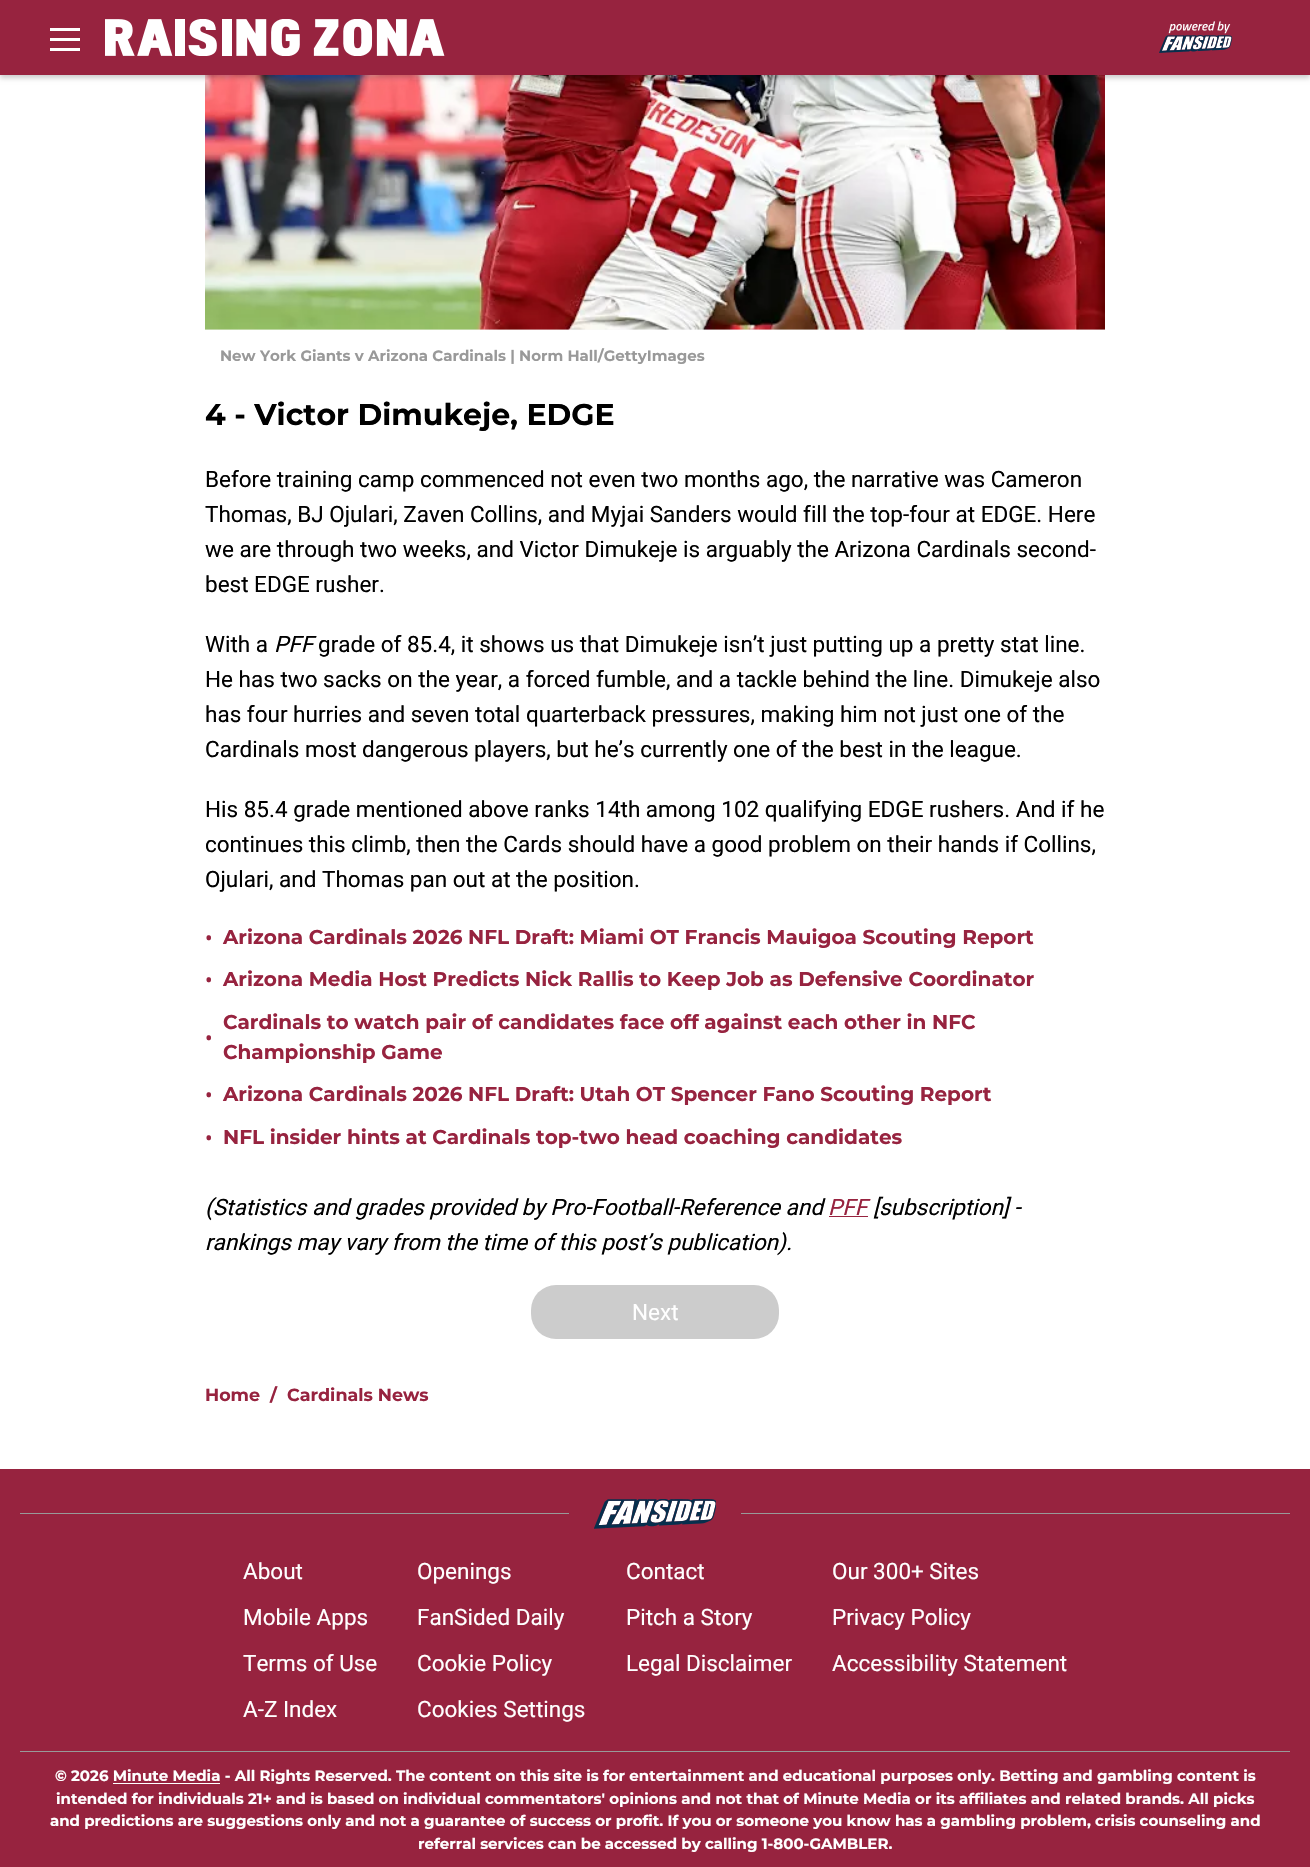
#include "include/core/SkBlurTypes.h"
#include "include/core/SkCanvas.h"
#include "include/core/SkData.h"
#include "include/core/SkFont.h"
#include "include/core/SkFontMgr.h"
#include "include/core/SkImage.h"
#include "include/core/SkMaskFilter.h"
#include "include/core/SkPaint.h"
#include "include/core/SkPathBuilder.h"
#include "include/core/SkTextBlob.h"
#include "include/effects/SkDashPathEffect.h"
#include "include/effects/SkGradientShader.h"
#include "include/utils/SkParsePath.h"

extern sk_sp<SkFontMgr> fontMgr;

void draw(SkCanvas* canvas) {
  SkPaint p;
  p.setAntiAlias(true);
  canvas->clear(SK_ColorWHITE);
  p.setColor(SkColorSetRGB(247, 247, 247));
  canvas->drawRect(SkRect::MakeLTRB(205, 329, 1105, 330), p);
  canvas->drawImageRect(SkImages::DeferredFromEncodedData(SkData::MakeFromFileName("images/3.png")), SkRect::MakeLTRB(205, 75, 1105, 330), SkSamplingOptions());
  p.setColor(SkColorSetARGB(51, 0, 0, 0));
  p.setMaskFilter(SkMaskFilter::MakeBlur(kNormal_SkBlurStyle, 2.5f));
  canvas->drawRect(SkRect::MakeLTRB(0, 3, 1310, 78), p);
  p.setMaskFilter(nullptr);
  p.setColor(SkColorSetRGB(151, 35, 63));
  canvas->drawRect(SkRect::MakeLTRB(0, 0, 1310, 75), p);
  p.setColor(SK_ColorWHITE);
  canvas->drawRect(SkRect::MakeLTRB(50, 28, 80, 31), p);
  canvas->drawRect(SkRect::MakeLTRB(50, 38, 80, 41), p);
  canvas->drawRect(SkRect::MakeLTRB(50, 48, 80, 51), p);
  canvas->drawImageRect(SkImages::DeferredFromEncodedData(SkData::MakeFromFileName("images/1.png")), SkRect::MakeLTRB(105, 19, 445, 56), SkSamplingOptions());
  canvas->drawImageRect(SkImages::DeferredFromEncodedData(SkData::MakeFromFileName("images/2.png")), SkRect::MakeLTRB(1159, 21, 1233, 53), SkSamplingOptions());
  p.setColor(SkColorSetRGB(151, 35, 63));
  canvas->drawRect(SkRect::MakeLTRB(829, 1216, 868, 1217), p);
  p.setColor(SkColorSetRGB(204, 204, 204));
  canvas->drawRoundRect(SkRect::MakeLTRB(531, 1285, 779, 1339), 25, 25, p);
  p.setColor(SkColorSetRGB(151, 35, 63));
  canvas->drawRect(SkRect::MakeLTRB(0, 1469, 1310, 1867), p);
  p.setColor(SkColorSetRGB(153, 153, 153));
  canvas->drawRect(SkRect::MakeLTRB(20, 1513, 569, 1514), p);
  canvas->drawImageRect(SkImages::DeferredFromEncodedData(SkData::MakeFromFileName("images/4.png")), SkRect::MakeLTRB(594, 1499, 716, 1529), SkSamplingOptions());
  canvas->drawRect(SkRect::MakeLTRB(741, 1513, 1290, 1514), p);
  canvas->drawRect(SkRect::MakeLTRB(20, 1751, 1290, 1752), p);
  p.setColor(SK_ColorWHITE);
  canvas->drawRect(SkRect::MakeLTRB(113, 1783, 220, 1784), p);
  SkFont font1(fontMgr->matchFamilyStyle("Montserrat", SkFontStyle(100, SkFontStyle::kNormal_Width, SkFontStyle::kUpright_Slant)), 15);
  font1.setSubpixel(true);
  p.setColor(SkColorSetRGB(153, 153, 153));
  canvas->drawString("New York Giants v Arizona Cardinals | Norm Hall/GettyImages", 220, 361, font1, p);
  SkFont font2(fontMgr->matchFamilyStyle("Montserrat", SkFontStyle(100, SkFontStyle::kNormal_Width, SkFontStyle::kUpright_Slant)), 30);
  font2.setSubpixel(true);
  p.setColor(SK_ColorBLACK);
  canvas->drawString("4 - Victor Dimukeje, EDGE", 205, 425, font2, p);
  SkFont font3(fontMgr->matchFamilyStyle("Roboto", SkFontStyle::Normal()), 22.5f);
  font3.setSubpixel(true);
  canvas->drawString("Before training camp commenced not even two months ago, the narrative was Cameron", 205, 487, font3, p);
  canvas->drawString("Thomas, BJ Ojulari, Zaven Collins, and Myjai Sanders would fill the top-four at EDGE. Here", 205, 522, font3, p);
  canvas->drawString("we are through two weeks, and Victor Dimukeje is arguably the Arizona Cardinals second-", 205, 557, font3, p);
  canvas->drawString("best EDGE rusher.", 205, 592, font3, p);
  canvas->drawString("With a", 205, 652, font3, p);
  SkFont font4(fontMgr->matchFamilyStyle("Roboto", SkFontStyle::Italic()), 22.5f);
  font4.setSubpixel(true);
  canvas->drawString("PFF", 274, 652, font4, p);
  canvas->drawString("grade of 85.4, it shows us that Dimukeje isn’t just putting up a pretty stat line.", 318, 652, font3, p);
  canvas->drawString("He has two sacks on the year, a forced fumble, and a tackle behind the line. Dimukeje also", 205, 687, font3, p);
  canvas->drawString("has four hurries and seven total quarterback pressures, making him not just one of the", 205, 722, font3, p);
  canvas->drawString("Cardinals most dangerous players, but he’s currently one of the best in the league.", 205, 757, font3, p);
  canvas->drawString("His 85.4 grade mentioned above ranks 14th among 102 qualifying EDGE rushers. And if he", 205, 817, font3, p);
  canvas->drawString("continues this climb, then the Cards should have a good problem on their hands if Collins,", 205, 852, font3, p);
  canvas->drawString("Ojulari, and Thomas pan out at the position.", 205, 887, font3, p);
  SkFont font5(fontMgr->matchFamilyStyle("Noto Sans", SkFontStyle::Normal()), 20);
  font5.setSubpixel(true);
  p.setColor(SkColorSetRGB(151, 35, 63));
  canvas->drawString("•", 205, 945, font5, p);
  SkFont font6(fontMgr->matchFamilyStyle("Montserrat", SkFontStyle(100, SkFontStyle::kNormal_Width, SkFontStyle::kUpright_Slant)), 20);
  font6.setSubpixel(true);
  canvas->drawString("Arizona Cardinals 2026 NFL Draft: Miami OT Francis Mauigoa Scouting Report", 223, 944, font6, p);
  canvas->drawString("•", 205, 987, font5, p);
  canvas->drawString("Arizona Media Host Predicts Nick Rallis to Keep Job as Defensive Coordinator", 223, 986, font6, p);
  canvas->drawString("•", 205, 1045, font5, p);
  canvas->drawString("Cardinals to watch pair of candidates face off against each other in NFC", 223, 1029, font6, p);
  canvas->drawString("Championship Game", 223, 1059, font6, p);
  canvas->drawString("•", 205, 1102, font5, p);
  canvas->drawString("Arizona Cardinals 2026 NFL Draft: Utah OT Spencer Fano Scouting Report", 223, 1101, font6, p);
  canvas->drawString("•", 205, 1145, font5, p);
  canvas->drawString("NFL insider hints at Cardinals top-two head coaching candidates", 223, 1144, font6, p);
  p.setColor(SK_ColorBLACK);
  canvas->drawString("(Statistics and grades provided by Pro-Football-Reference and", 205, 1215, font4, p);
  p.setColor(SkColorSetRGB(151, 35, 63));
  canvas->drawString("PFF", 828, 1215, font4, p);
  p.setColor(SK_ColorBLACK);
  canvas->drawString("[subscription] -", 873, 1215, font4, p);
  canvas->drawString("rankings may vary from the time of this post’s publication).", 205, 1250, font4, p);
  p.setColor(SK_ColorWHITE);
  canvas->drawString("Next", 632, 1320, font3, p);
  SkFont font7(fontMgr->matchFamilyStyle("Montserrat", SkFontStyle(100, SkFontStyle::kNormal_Width, SkFontStyle::kUpright_Slant)), 17.5f);
  font7.setSubpixel(true);
  p.setColor(SkColorSetRGB(151, 35, 63));
  canvas->drawString("Home", 205, 1401, font7, p);
  canvas->drawString("/", 270, 1401, font7, p);
  canvas->drawString("Cardinals News", 287, 1401, font7, p);
  p.setColor(SK_ColorWHITE);
  canvas->drawString("About", 243, 1579, font3, p);
  canvas->drawString("Openings", 417, 1579, font3, p);
  canvas->drawString("Contact", 626, 1579, font3, p);
  canvas->drawString("Our 300+ Sites", 832, 1579, font3, p);
  canvas->drawString("Mobile Apps", 243, 1625, font3, p);
  canvas->drawString("FanSided Daily", 417, 1625, font3, p);
  canvas->drawString("Pitch a Story", 626, 1625, font3, p);
  canvas->drawString("Privacy Policy", 832, 1625, font3, p);
  canvas->drawString("Terms of Use", 243, 1671, font3, p);
  canvas->drawString("Cookie Policy", 417, 1671, font3, p);
  canvas->drawString("Legal Disclaimer", 626, 1671, font3, p);
  canvas->drawString("Accessibility Statement", 832, 1671, font3, p);
  canvas->drawString("A-Z Index", 243, 1717, font3, p);
  canvas->drawString("Cookies Settings", 417, 1717, font3, p);
  canvas->drawString("© 2026 Minute Media - All Rights Reserved. The content on this site is for entertainment and educational purposes only. Betting and gambling content is", 55, 1781, font1, p);
  canvas->drawString("intended for individuals 21+ and is based on individual commentators' opinions and not that of Minute Media or its affiliates and related brands. All picks", 56, 1804, font1, p);
  canvas->drawString("and predictions are suggestions only and not a guarantee of success or profit. If you or someone you know has a gambling problem, crisis counseling and", 50, 1826, font1, p);
  canvas->drawString("referral services can be accessed by calling 1-800-GAMBLER.", 418, 1849, font1, p);
}
